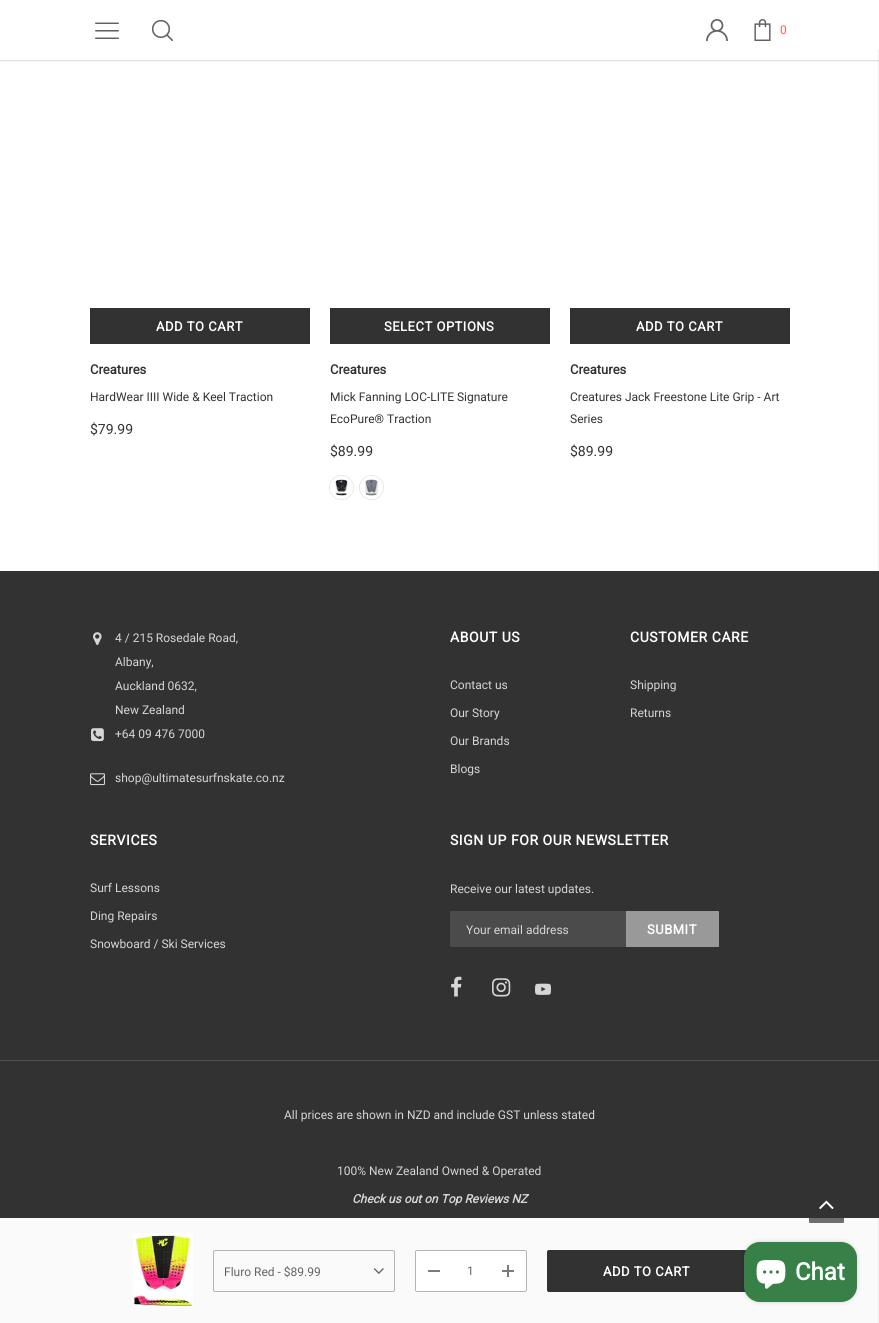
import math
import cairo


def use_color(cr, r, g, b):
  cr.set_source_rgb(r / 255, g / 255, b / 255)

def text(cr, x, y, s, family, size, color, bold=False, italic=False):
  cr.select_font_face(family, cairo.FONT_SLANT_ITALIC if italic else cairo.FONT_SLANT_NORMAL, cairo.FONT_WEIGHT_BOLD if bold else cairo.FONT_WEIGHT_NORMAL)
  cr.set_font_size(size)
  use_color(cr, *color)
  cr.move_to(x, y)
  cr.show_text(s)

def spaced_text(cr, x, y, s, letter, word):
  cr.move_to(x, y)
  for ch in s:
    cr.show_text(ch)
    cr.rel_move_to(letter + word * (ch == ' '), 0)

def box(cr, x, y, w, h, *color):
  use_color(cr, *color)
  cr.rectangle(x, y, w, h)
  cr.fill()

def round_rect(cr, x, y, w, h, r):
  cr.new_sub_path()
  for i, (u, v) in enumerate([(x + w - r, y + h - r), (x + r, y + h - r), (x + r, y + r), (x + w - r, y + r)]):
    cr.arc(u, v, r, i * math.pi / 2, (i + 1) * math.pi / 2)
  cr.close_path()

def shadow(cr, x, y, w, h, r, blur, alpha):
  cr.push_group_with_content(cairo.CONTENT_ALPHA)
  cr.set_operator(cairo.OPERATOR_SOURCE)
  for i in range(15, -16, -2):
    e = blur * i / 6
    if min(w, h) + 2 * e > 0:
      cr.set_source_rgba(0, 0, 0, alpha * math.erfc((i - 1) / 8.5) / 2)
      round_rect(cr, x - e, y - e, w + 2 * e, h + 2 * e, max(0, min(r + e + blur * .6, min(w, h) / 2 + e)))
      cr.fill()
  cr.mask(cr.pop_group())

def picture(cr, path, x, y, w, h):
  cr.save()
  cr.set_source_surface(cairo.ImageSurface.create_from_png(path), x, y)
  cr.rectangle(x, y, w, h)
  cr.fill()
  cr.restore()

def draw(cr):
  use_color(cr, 255, 255, 255)
  cr.paint()
  use_color(cr, 0, 0, 0)
  shadow(cr, 0, 1, 879, 60, 0, 1, 0.1)
  cr.rectangle(-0.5, -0.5, 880, 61)
  cr.set_source_rgba(0, 0, 0, 0.06)
  cr.set_line_width(1)
  cr.stroke()
  box(cr, 0, 0, 879, 60, 255, 255, 255)
  picture(cr, "img_01.png", 95, 22, 24, 17)
  picture(cr, "img_02.png", 152, 20, 21, 21)
  picture(cr, "img_03.png", 706, 19, 22, 22)
  picture(cr, "img_04.png", 754, 19, 17, 22)
  box(cr, 0, 1218, 879, 105, 250, 250, 250)
  box(cr, 0, 571, 879, 647, 50, 50, 50)
  box(cr, 0, 1060, 879, 1, 81, 81, 81)
  cr.rectangle(878.5, 49.5, 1, 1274)
  cr.set_source_rgba(0, 0, 0, 0.06)
  cr.stroke()
  box(cr, 90, 308, 220, 36, 50, 50, 50)
  box(cr, 330, 308, 220, 36, 50, 50, 50)
  cr.arc(341.5, 487.5, 12, 0, 2 * math.pi)
  use_color(cr, 230, 230, 230)
  cr.stroke()
  picture(cr, "img_05.png", 335, 479, 13, 17)
  cr.arc(341.5, 487.5, 10, 0, 2 * math.pi)
  use_color(cr, 255, 255, 255)
  cr.set_line_width(3)
  cr.stroke()
  cr.arc(371.5, 487.5, 12, 0, 2 * math.pi)
  use_color(cr, 230, 230, 230)
  cr.set_line_width(1)
  cr.stroke()
  picture(cr, "img_06.png", 365, 479, 13, 17)
  cr.arc(371.5, 487.5, 10, 0, 2 * math.pi)
  use_color(cr, 255, 255, 255)
  cr.set_line_width(3)
  cr.stroke()
  box(cr, 570, 308, 220, 36, 50, 50, 50)
  picture(cr, "img_07.png", 133, 1233, 60, 75)
  round_rect(cr, 213.5, 1250.5, 181, 41, 1.5)
  use_color(cr, 180, 180, 180)
  cr.set_line_width(1)
  cr.stroke()
  picture(cr, "img_08.png", 373, 1268, 11, 6)
  use_color(cr, 255, 255, 255)
  round_rect(cr, 415.5, 1250.5, 111, 41, 1.5)
  cr.fill_preserve()
  use_color(cr, 180, 180, 180)
  cr.stroke()
  box(cr, 428, 1270, 12, 2, 123, 123, 123)
  box(cr, 507, 1265, 2, 12, 123, 123, 123)
  box(cr, 502, 1270, 12, 2, 123, 123, 123)
  use_color(cr, 50, 50, 50)
  round_rect(cr, 547.5, 1250.5, 199, 41, 1.5)
  cr.fill_preserve()
  cr.stroke()
  picture(cr, "img_09.png", 93, 632, 9, 13)
  picture(cr, "img_10.png", 91, 728, 13, 14)
  picture(cr, "img_11.png", 90, 773, 15, 13)
  use_color(cr, 75, 75, 75)
  cr.new_path()
  cr.move_to(451, 911.5)
  cr.line_to(626.5, 911.5)
  cr.line_to(626.5, 946.5)
  cr.line_to(451, 946.5)
  cr.curve_to(450.5, 946.5, 450.5, 946.5, 450.5, 946)
  cr.line_to(450.5, 912)
  cr.curve_to(450.5, 911.5, 450.5, 911.5, 451, 911.5)
  cr.close_path()
  cr.fill_preserve()
  cr.stroke()
  use_color(cr, 153, 153, 153)
  cr.new_path()
  cr.move_to(626.5, 911.5)
  cr.line_to(718, 911.5)
  cr.curve_to(718.5, 911.5, 718.5, 911.5, 718.5, 912)
  cr.line_to(718.5, 946)
  cr.curve_to(718.5, 946.5, 718.5, 946.5, 718, 946.5)
  cr.line_to(626.5, 946.5)
  cr.close_path()
  cr.fill_preserve()
  cr.stroke()
  picture(cr, "img_12.png", 451, 976, 11, 21)
  picture(cr, "img_13.png", 492, 978, 19, 19)
  picture(cr, "img_14.png", 535, 983, 16, 12)
  cr.set_source_rgba(0.196, 0.196, 0.196, 0.7)
  round_rect(cr, 809, 1188, 35, 35, 1)
  cr.fill()
  picture(cr, "img_15.png", 819, 1200, 15, 9)
  use_color(cr, 0, 0, 0)
  shadow(cr, 744, 1242, 113, 60, 16, 2.5, 0.15)
  use_color(cr, 55, 128, 71)
  round_rect(cr, 744, 1242, 113, 60, 16)
  cr.fill()
  picture(cr, "img_16.png", 756, 1260, 30, 29)
  text(cr, 780, 34, "0", "Roboto", 12, (239, 100, 84))
  cr.select_font_face("Roboto", cairo.FONT_SLANT_NORMAL, cairo.FONT_WEIGHT_BOLD)
  cr.set_font_size(13)
  use_color(cr, 255, 255, 255)
  spaced_text(cr, 156, 331, "ADD TO CART", 0.5, 0)
  text(cr, 90, 374, "Creatures", "Roboto", 13, (50, 50, 50), bold=True)
  text(cr, 90, 401, "HardWear IIII Wide & Keel Traction", "Roboto", 12, (50, 50, 50))
  text(cr, 90, 434, "$79.99", "Roboto", 14, (50, 50, 50))
  cr.select_font_face("Roboto", cairo.FONT_SLANT_NORMAL, cairo.FONT_WEIGHT_BOLD)
  cr.set_font_size(13)
  use_color(cr, 255, 255, 255)
  spaced_text(cr, 384, 331, "SELECT OPTIONS", 0.5, 0)
  text(cr, 330, 374, "Creatures", "Roboto", 13, (50, 50, 50), bold=True)
  text(cr, 330, 401, "Mick Fanning LOC-LITE Signature", "Roboto", 12, (50, 50, 50))
  text(cr, 330, 423, "EcoPure® Traction", "Roboto", 12, (50, 50, 50))
  text(cr, 330, 456, "$89.99", "Roboto", 14, (50, 50, 50))
  cr.select_font_face("Roboto", cairo.FONT_SLANT_NORMAL, cairo.FONT_WEIGHT_BOLD)
  cr.set_font_size(13)
  use_color(cr, 255, 255, 255)
  spaced_text(cr, 636, 331, "ADD TO CART", 0.5, 0)
  text(cr, 570, 374, "Creatures", "Roboto", 13, (50, 50, 50), bold=True)
  text(cr, 570, 401, "Creatures Jack Freestone Lite Grip - Art", "Roboto", 12, (50, 50, 50))
  text(cr, 570, 423, "Series", "Roboto", 12, (50, 50, 50))
  text(cr, 570, 456, "$89.99", "Roboto", 14, (50, 50, 50))
  text(cr, 224, 1276, "Fluro Red - $89.99", "Roboto", 12, (100, 100, 100))
  text(cr, 467, 1275, "1", "Roboto", 12, (100, 100, 100))
  cr.select_font_face("Roboto", cairo.FONT_SLANT_NORMAL, cairo.FONT_WEIGHT_BOLD)
  cr.set_font_size(13)
  use_color(cr, 255, 255, 255)
  spaced_text(cr, 603, 1276, "ADD TO CART", 0.5, 0)
  text(cr, 115, 642, "4 / 215 Rosedale Road,", "Roboto", 12, (214, 214, 214))
  text(cr, 115, 666, "Albany,", "Roboto", 12, (214, 214, 214))
  text(cr, 115, 690, "Auckland 0632,", "Roboto", 12, (214, 214, 214))
  text(cr, 115, 714, "New Zealand", "Roboto", 12, (214, 214, 214))
  text(cr, 115, 738, "+64 09 476 7000", "Roboto", 12, (214, 214, 214))
  text(cr, 115, 782, "shop@ultimatesurfnskate.co.nz", "Roboto", 12, (214, 214, 214))
  cr.select_font_face("Roboto", cairo.FONT_SLANT_NORMAL, cairo.FONT_WEIGHT_BOLD)
  cr.set_font_size(14)
  use_color(cr, 255, 255, 255)
  spaced_text(cr, 450, 642, "ABOUT US", 0.55, 0)
  text(cr, 450, 689, "Contact us", "Roboto", 12, (214, 214, 214))
  text(cr, 450, 717, "Our Story", "Roboto", 12, (214, 214, 214))
  text(cr, 450, 745, "Our Brands", "Roboto", 12, (214, 214, 214))
  text(cr, 450, 773, "Blogs", "Roboto", 12, (214, 214, 214))
  cr.select_font_face("Roboto", cairo.FONT_SLANT_NORMAL, cairo.FONT_WEIGHT_BOLD)
  cr.set_font_size(14)
  use_color(cr, 255, 255, 255)
  spaced_text(cr, 630, 642, "CUSTOMER CARE", 0.55, 0)
  text(cr, 630, 689, "Shipping", "Roboto", 12, (214, 214, 214))
  text(cr, 630, 717, "Returns", "Roboto", 12, (214, 214, 214))
  cr.select_font_face("Roboto", cairo.FONT_SLANT_NORMAL, cairo.FONT_WEIGHT_BOLD)
  cr.set_font_size(14)
  use_color(cr, 255, 255, 255)
  spaced_text(cr, 90, 845, "SERVICES", 0.55, 0)
  text(cr, 90, 892, "Surf Lessons", "Roboto", 12, (214, 214, 214))
  text(cr, 90, 920, "Ding Repairs", "Roboto", 12, (214, 214, 214))
  text(cr, 90, 948, "Snowboard / Ski Services", "Roboto", 12, (214, 214, 214))
  cr.select_font_face("Roboto", cairo.FONT_SLANT_NORMAL, cairo.FONT_WEIGHT_BOLD)
  cr.set_font_size(14)
  use_color(cr, 255, 255, 255)
  spaced_text(cr, 450, 845, "SIGN UP FOR OUR NEWSLETTER", 0.55, 0)
  text(cr, 450, 893, "Receive our latest updates.", "Roboto", 12, (214, 214, 214))
  text(cr, 466, 934, "Your email address", "Roboto", 12, (214, 214, 214))
  cr.select_font_face("Roboto", cairo.FONT_SLANT_NORMAL, cairo.FONT_WEIGHT_BOLD)
  cr.set_font_size(13)
  use_color(cr, 255, 255, 255)
  spaced_text(cr, 647, 934, "SUBMIT", 0.5, 0)
  text(cr, 284, 1119, "All prices are shown in NZD and include GST unless stated", "Roboto", 12, (214, 214, 214))
  text(cr, 337, 1175, "100% New Zealand Owned & Operated", "Roboto", 12, (214, 214, 214))
  text(cr, 352, 1203, "Check us out on Top Reviews NZ", "Roboto", 12, (214, 214, 214), bold=True, italic=True)
  text(cr, 795, 1280, "Chat", "Roboto", 24, (255, 255, 255), bold=True)


surface = cairo.ImageSurface(cairo.FORMAT_RGB24, 879, 1323)
cr = cairo.Context(surface)
options = cairo.FontOptions()
options.set_hint_metrics(cairo.HINT_METRICS_OFF)
options.set_hint_style(cairo.HINT_STYLE_NONE)
cr.set_font_options(options)
cr.set_miter_limit(4)
draw(cr)
surface.write_to_png("out.png")
